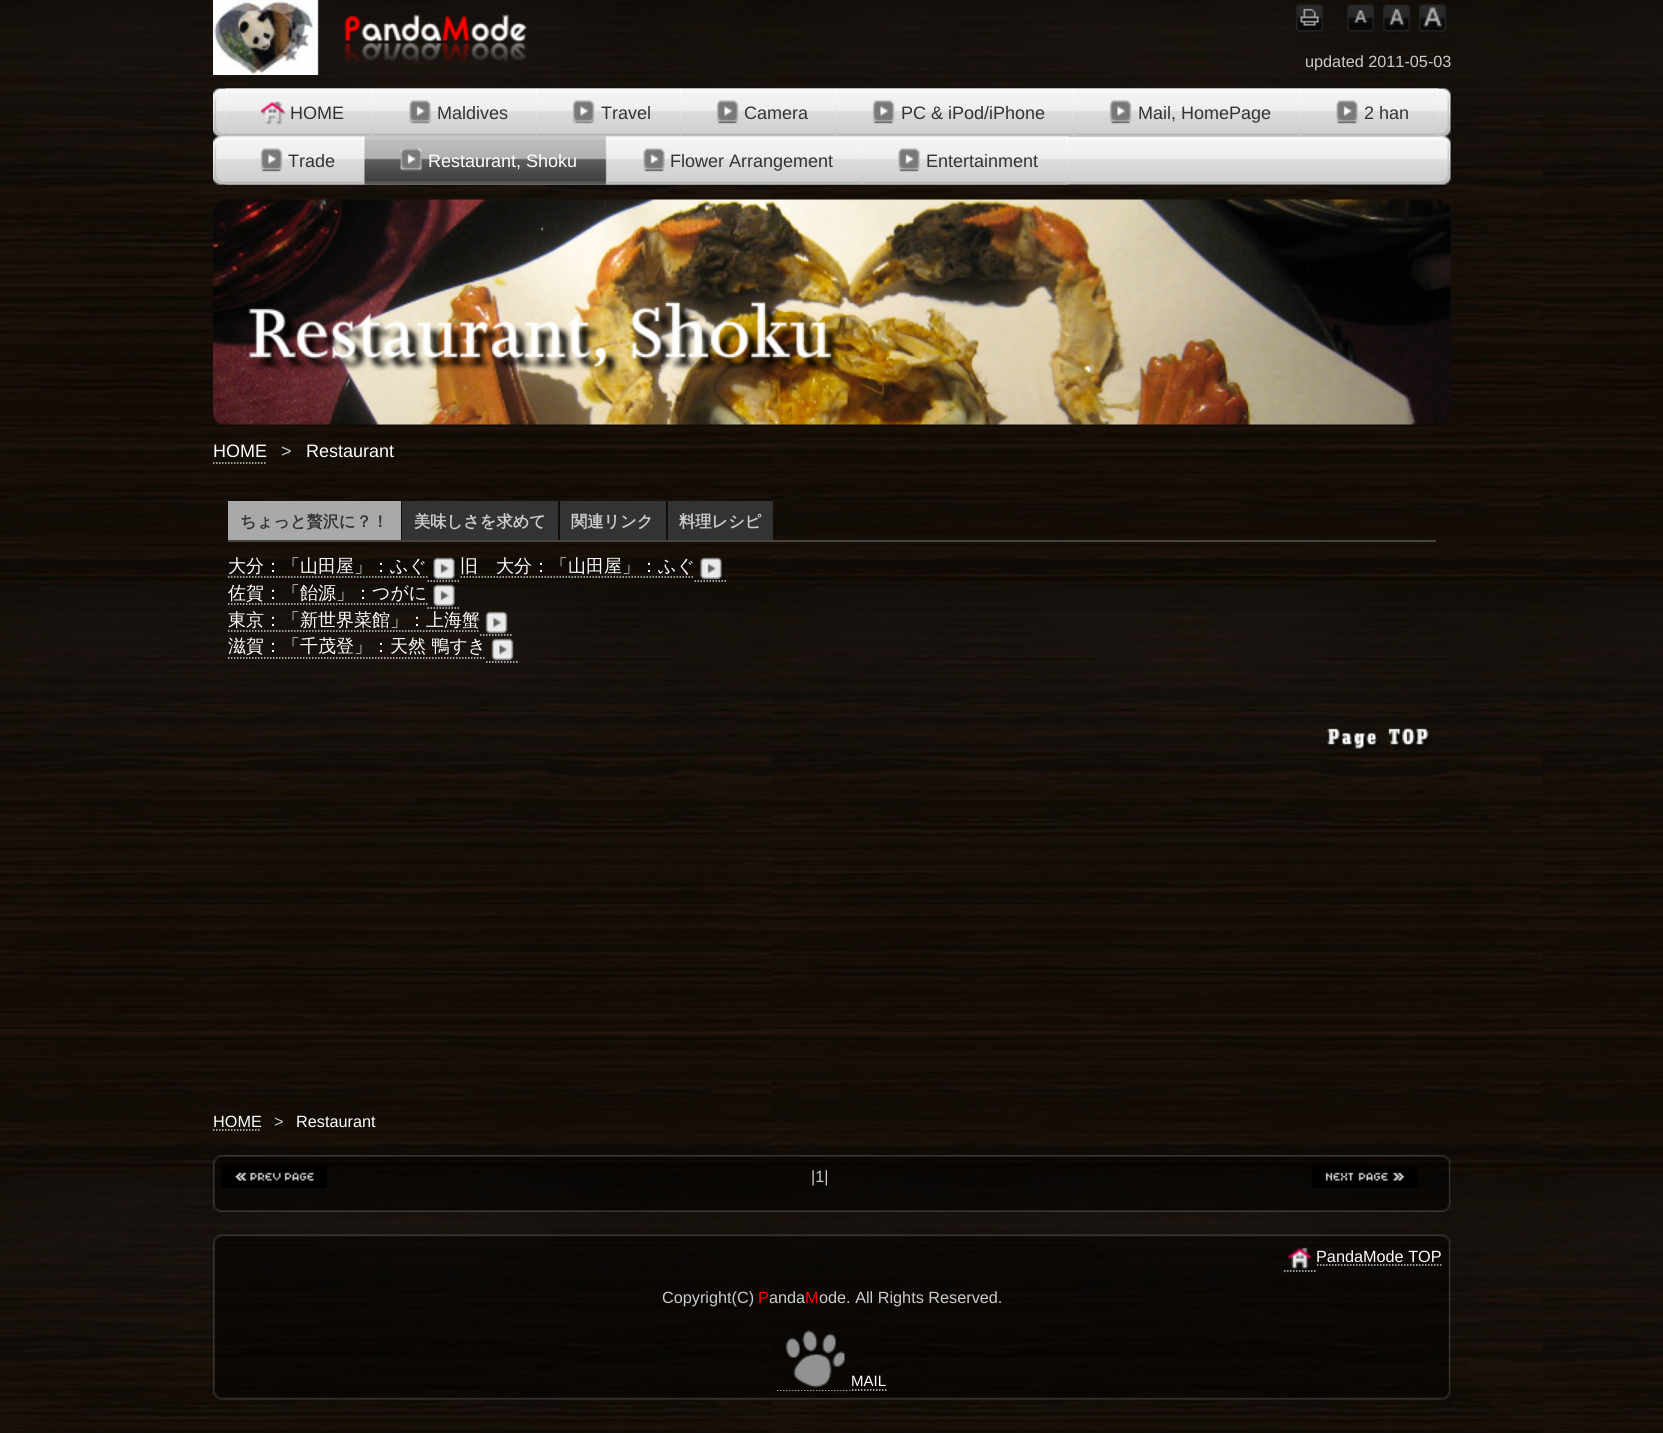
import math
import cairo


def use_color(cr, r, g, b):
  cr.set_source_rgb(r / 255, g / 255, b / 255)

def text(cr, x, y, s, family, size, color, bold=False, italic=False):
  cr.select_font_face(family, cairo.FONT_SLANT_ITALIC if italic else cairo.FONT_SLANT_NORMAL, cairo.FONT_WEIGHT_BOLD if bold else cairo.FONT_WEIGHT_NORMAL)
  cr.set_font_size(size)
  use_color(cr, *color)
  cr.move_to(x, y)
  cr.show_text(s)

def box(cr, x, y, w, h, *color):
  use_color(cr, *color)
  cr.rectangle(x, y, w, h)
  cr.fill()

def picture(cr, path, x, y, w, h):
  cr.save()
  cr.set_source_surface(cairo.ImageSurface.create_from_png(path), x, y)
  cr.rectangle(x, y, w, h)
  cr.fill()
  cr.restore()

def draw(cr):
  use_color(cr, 255, 255, 255)
  cr.paint()
  picture(cr, "img_01.png", 0, 0, 1663, 1433)
  picture(cr, "img_02.png", 213, 0, 314, 75)
  picture(cr, "img_03.png", 1296, 4, 27, 28)
  picture(cr, "img_04.png", 1347, 4, 28, 28)
  picture(cr, "img_05.png", 1383, 4, 28, 28)
  picture(cr, "img_06.png", 1419, 4, 28, 28)
  picture(cr, "img_07.png", 213, 88, 12, 97)
  picture(cr, "img_08.png", 225, 88, 1226, 97)
  picture(cr, "img_09.png", 225, 88, 2, 49)
  picture(cr, "img_10.png", 226, 88, 148, 49)
  picture(cr, "img_11.png", 261, 101, 24, 24)
  picture(cr, "img_12.png", 373, 88, 164, 49)
  picture(cr, "img_13.png", 409, 100, 22, 24)
  picture(cr, "img_14.png", 537, 88, 144, 49)
  picture(cr, "img_15.png", 572, 100, 23, 24)
  picture(cr, "img_16.png", 681, 88, 156, 49)
  picture(cr, "img_17.png", 716, 100, 23, 24)
  picture(cr, "img_18.png", 837, 88, 237, 49)
  picture(cr, "img_19.png", 872, 100, 23, 24)
  picture(cr, "img_20.png", 1074, 88, 227, 49)
  picture(cr, "img_19.png", 1109, 100, 23, 24)
  picture(cr, "img_21.png", 1300, 88, 139, 49)
  picture(cr, "img_22.png", 1336, 100, 22, 24)
  picture(cr, "img_23.png", 225, 136, 140, 49)
  picture(cr, "img_19.png", 260, 148, 23, 24)
  picture(cr, "img_24.png", 364, 136, 244, 49)
  picture(cr, "img_25.png", 400, 148, 22, 24)
  picture(cr, "img_26.png", 607, 136, 256, 49)
  picture(cr, "img_27.png", 643, 148, 22, 24)
  picture(cr, "img_28.png", 862, 136, 206, 49)
  picture(cr, "img_27.png", 898, 148, 22, 24)
  picture(cr, "img_29.png", 213, 199, 1238, 226)
  cr.new_path()
  cr.move_to(213, 463)
  cr.line_to(267, 463)
  use_color(cr, 204, 204, 204)
  cr.set_line_width(1.5)
  cr.set_dash([1.5, 1.5])
  cr.stroke()
  box(cr, 228, 501, 173, 39, 169, 169, 169)
  box(cr, 402, 501, 156, 39, 51, 51, 51)
  box(cr, 560, 501, 106, 39, 51, 51, 51)
  box(cr, 668, 501, 105, 39, 51, 51, 51)
  box(cr, 228, 540, 1208, 2, 68, 68, 68)
  cr.new_path()
  cr.move_to(228, 577)
  cr.line_to(427.5, 577)
  use_color(cr, 204, 204, 204)
  cr.stroke()
  cr.new_path()
  cr.move_to(427.5, 581)
  cr.line_to(460.5, 581)
  cr.stroke()
  picture(cr, "img_30.png", 433, 557, 22, 23)
  cr.new_path()
  cr.move_to(460.5, 577)
  cr.line_to(694.5, 577)
  cr.stroke()
  cr.new_path()
  cr.move_to(694.5, 581)
  cr.line_to(727.5, 581)
  cr.stroke()
  picture(cr, "img_31.png", 700, 557, 22, 23)
  cr.new_path()
  cr.move_to(228, 604)
  cr.line_to(427.5, 604)
  cr.stroke()
  cr.new_path()
  cr.move_to(427.5, 608)
  cr.line_to(460.5, 608)
  cr.stroke()
  picture(cr, "img_32.png", 433, 584, 22, 23)
  cr.new_path()
  cr.move_to(228, 631)
  cr.line_to(480, 631)
  cr.stroke()
  cr.new_path()
  cr.move_to(480, 635)
  cr.line_to(513, 635)
  cr.stroke()
  picture(cr, "img_33.png", 485, 611, 23, 23)
  cr.new_path()
  cr.move_to(228, 658)
  cr.line_to(486, 658)
  cr.stroke()
  cr.new_path()
  cr.move_to(486, 662)
  cr.line_to(519, 662)
  cr.stroke()
  picture(cr, "img_34.png", 491, 638, 23, 23)
  picture(cr, "img_35.png", 1327, 727, 105, 24)
  cr.new_path()
  cr.move_to(213, 1130)
  cr.line_to(261, 1130)
  cr.stroke()
  picture(cr, "img_36.png", 213, 1155, 9, 9)
  picture(cr, "img_37.png", 222, 1155, 1220, 9)
  picture(cr, "img_38.png", 1441, 1155, 10, 9)
  picture(cr, "img_39.png", 213, 1164, 9, 39)
  cr.set_source_rgba(0, 0, 0, 0.5)
  cr.rectangle(222, 1164, 1220, 39)
  cr.fill()
  picture(cr, "img_40.png", 222, 1165, 105, 23)
  picture(cr, "img_41.png", 1312, 1166, 106, 22)
  picture(cr, "img_42.png", 1442, 1164, 9, 39)
  picture(cr, "img_43.png", 213, 1203, 9, 9)
  picture(cr, "img_44.png", 222, 1203, 1220, 9)
  picture(cr, "img_45.png", 1441, 1203, 10, 9)
  picture(cr, "img_46.png", 213, 1234, 9, 10)
  picture(cr, "img_47.png", 222, 1234, 1220, 10)
  picture(cr, "img_48.png", 1441, 1234, 10, 10)
  picture(cr, "img_53.png", 213, 1390, 9, 10)
  picture(cr, "img_49.png", 213, 1243, 9, 148)
  cr.rectangle(222, 1244, 1220, 146)
  cr.fill()
  cr.new_path()
  cr.move_to(1284, 1271)
  cr.line_to(1317, 1271)
  use_color(cr, 204, 204, 204)
  cr.stroke()
  picture(cr, "img_50.png", 1288, 1247, 24, 24)
  cr.new_path()
  cr.move_to(1317, 1265)
  cr.line_to(1441.5, 1265)
  cr.stroke()
  picture(cr, "img_51.png", 785, 1330, 60, 58)
  picture(cr, "img_54.png", 222, 1390, 1220, 10)
  cr.save()
  cr.rectangle(213, 1244, 1238, 147)
  cr.clip()
  cr.new_path()
  cr.move_to(777, 1391)
  cr.line_to(852, 1391)
  cr.stroke()
  cr.restore()
  cr.new_path()
  cr.move_to(852, 1390)
  cr.line_to(886.5, 1390)
  cr.stroke()
  picture(cr, "img_55.png", 1441, 1390, 10, 10)
  picture(cr, "img_52.png", 1441, 1243, 10, 148)
  text(cr, 1305, 67, "updated 2011-05-03", "Liberation Sans", 16.25, (204, 204, 204))
  text(cr, 290, 119, "HOME", "Liberation Sans", 18, (51, 51, 51))
  text(cr, 437, 119, "Maldives", "Liberation Sans", 18, (51, 51, 51))
  text(cr, 601, 119, "Travel", "Liberation Sans", 18, (51, 51, 51))
  text(cr, 744, 119, "Camera", "Liberation Sans", 18, (51, 51, 51))
  text(cr, 901, 119, "PC & iPod/iPhone", "Liberation Sans", 18, (51, 51, 51))
  text(cr, 1138, 119, "Mail, HomePage", "Liberation Sans", 18, (51, 51, 51))
  text(cr, 1364, 119, "2 han", "Liberation Sans", 18, (51, 51, 51))
  text(cr, 288, 167, "Trade", "Liberation Sans", 18, (51, 51, 51))
  text(cr, 428, 167, "Restaurant, Shoku", "Liberation Sans", 18, (255, 255, 255))
  text(cr, 670, 167, "Flower Arrangement", "Liberation Sans", 18, (51, 51, 51))
  text(cr, 926, 167, "Entertainment", "Liberation Sans", 18, (51, 51, 51))
  text(cr, 213, 457, "HOME", "Liberation Sans", 18, (255, 255, 255))
  text(cr, 281, 457, ">", "Liberation Sans", 18, (204, 204, 204))
  text(cr, 306, 457, "Restaurant", "Liberation Sans", 18, (255, 255, 255))
  text(cr, 240, 527, "ちょっと贅沢に？！", "WenQuanYi Zen Hei", 16.25, (51, 51, 51), bold=True)
  text(cr, 414, 527, "美味しさを求めて", "WenQuanYi Zen Hei", 16.25, (204, 204, 204), bold=True)
  text(cr, 571, 527, "関連リンク", "WenQuanYi Zen Hei", 16.25, (204, 204, 204), bold=True)
  text(cr, 679, 527, "料理レシピ", "WenQuanYi Zen Hei", 16.25, (204, 204, 204), bold=True)
  text(cr, 228, 572, "大分：「山田屋」：ふぐ", "WenQuanYi Zen Hei Medium", 18, (255, 255, 255))
  text(cr, 460, 572, "旧　大分：「山田屋」：ふぐ", "WenQuanYi Zen Hei Medium", 18, (255, 255, 255))
  text(cr, 228, 599, "佐賀：「飴源」：つがに", "WenQuanYi Zen Hei Medium", 18, (255, 255, 255))
  text(cr, 228, 626, "東京：「新世界菜館」：上海蟹", "WenQuanYi Zen Hei Medium", 18, (255, 255, 255))
  text(cr, 228, 652, "滋賀：「千茂登」：天然 鴨すき", "WenQuanYi Zen Hei Medium", 18, (255, 255, 255))
  text(cr, 213, 1127, "HOME", "Liberation Sans", 16.25, (255, 255, 255))
  text(cr, 274, 1127, ">", "Liberation Sans", 16.25, (204, 204, 204))
  text(cr, 296, 1127, "Restaurant", "Liberation Sans", 16.25, (255, 255, 255))
  text(cr, 811, 1182, "|1|", "Liberation Sans", 16.25, (204, 204, 204))
  text(cr, 1316, 1262, "PandaMode TOP", "Liberation Sans", 16.25, (255, 255, 255))
  text(cr, 662, 1303, "Copyright(C)", "Liberation Sans", 16.25, (204, 204, 204))
  text(cr, 758, 1303, "P", "Liberation Sans", 16.25, (255, 0, 0))
  text(cr, 769, 1303, "anda", "Liberation Sans", 16.25, (204, 204, 204))
  text(cr, 805, 1303, "M", "Liberation Sans", 16.25, (255, 0, 0))
  text(cr, 819, 1303, "ode. All Rights Reserved.", "Liberation Sans", 16.25, (204, 204, 204))
  text(cr, 851, 1386, "MAIL", "Liberation Sans", 15, (255, 255, 255))


surface = cairo.ImageSurface(cairo.FORMAT_RGB24, 1663, 1433)
cr = cairo.Context(surface)
options = cairo.FontOptions()
options.set_hint_metrics(cairo.HINT_METRICS_OFF)
options.set_hint_style(cairo.HINT_STYLE_NONE)
cr.set_font_options(options)
cr.set_miter_limit(4)
draw(cr)
surface.write_to_png("out.png")
